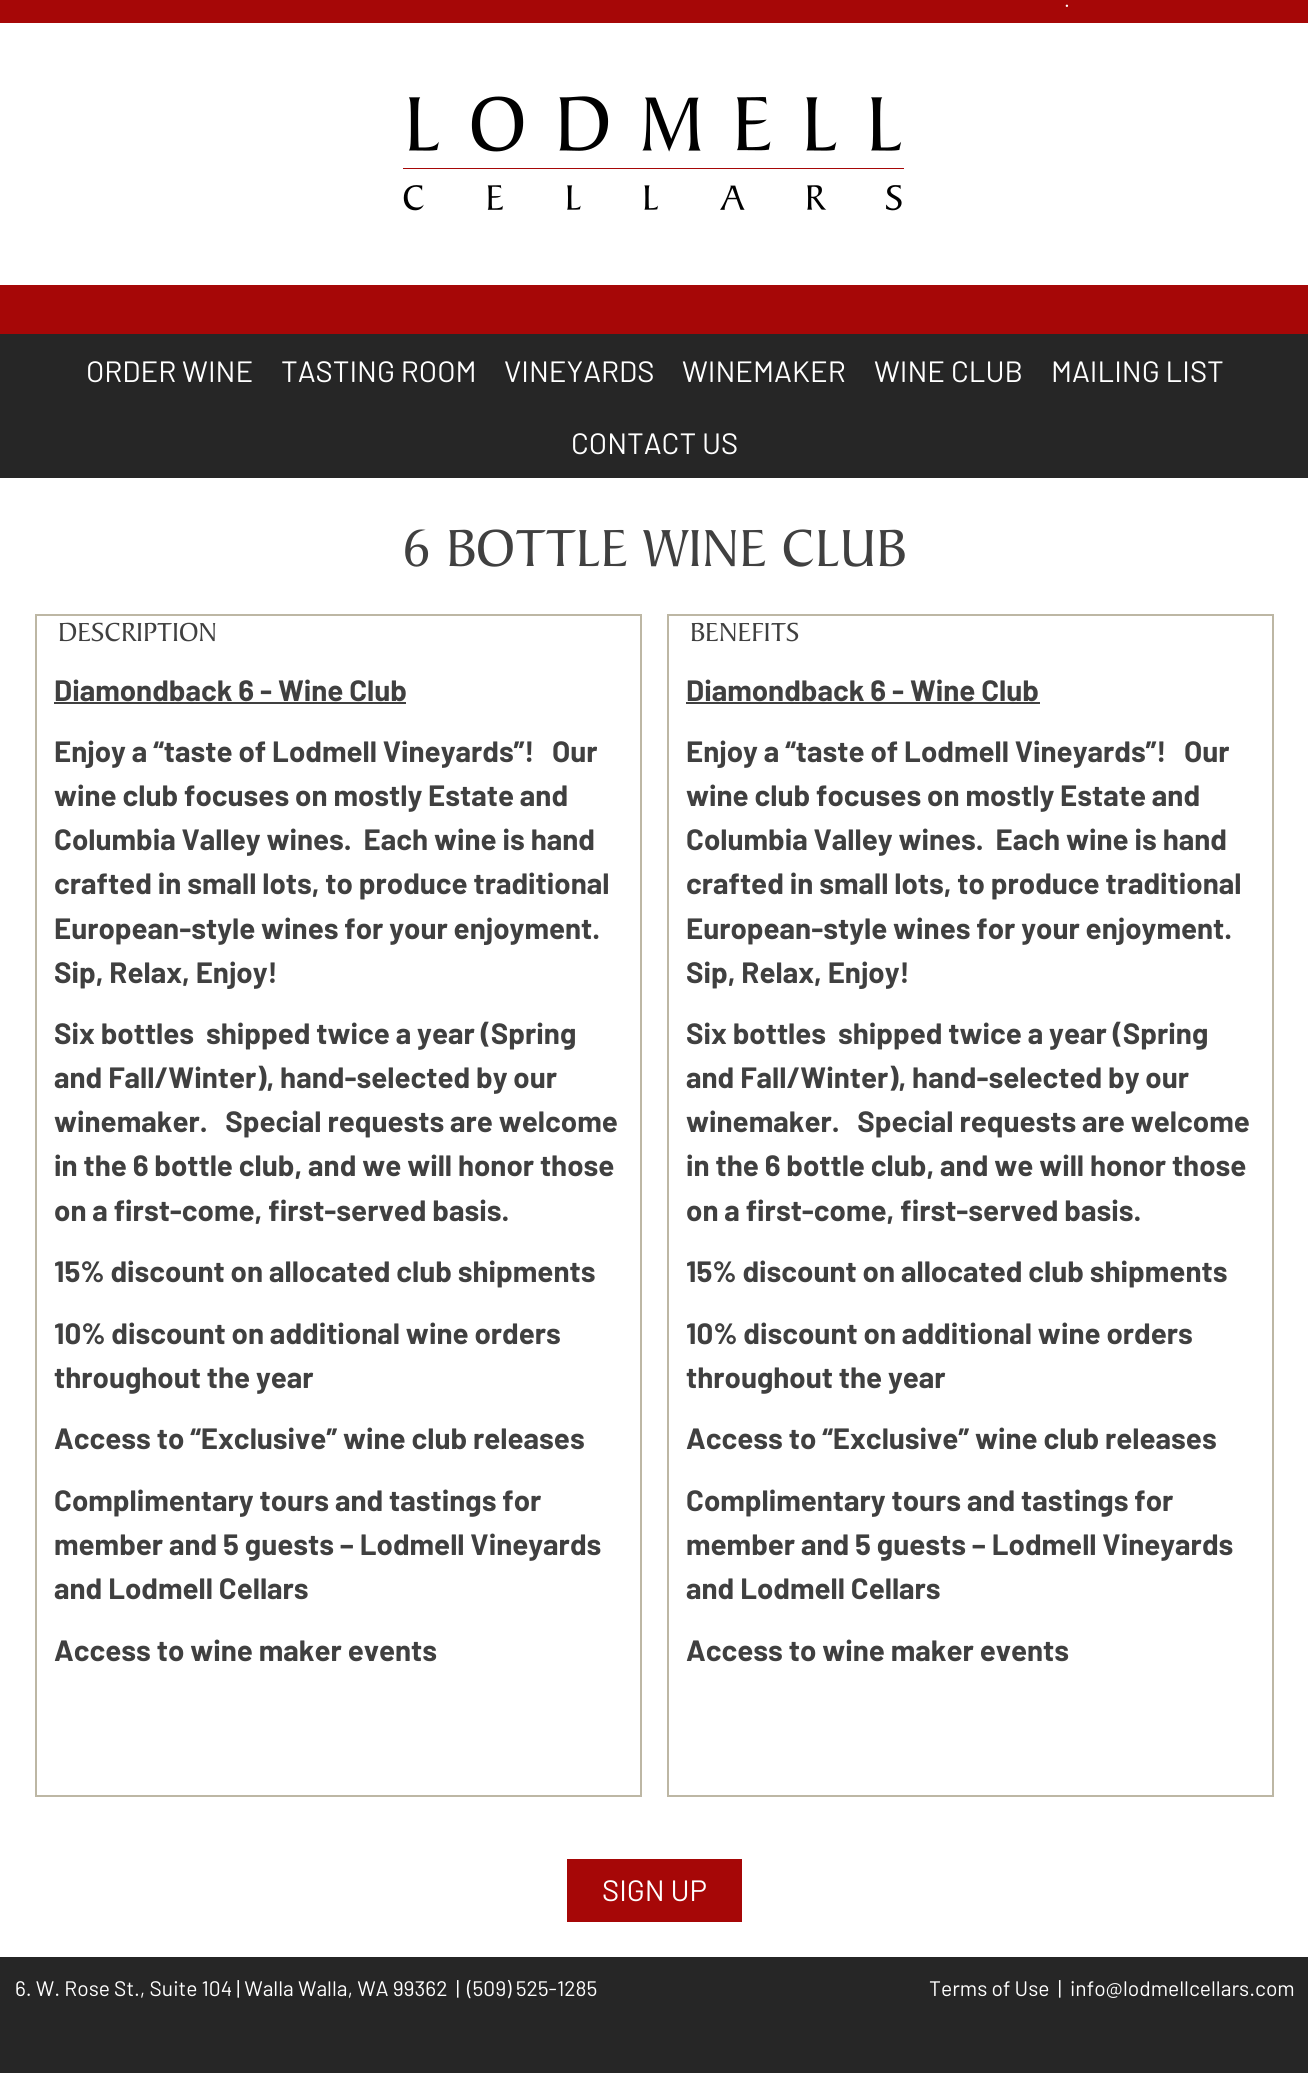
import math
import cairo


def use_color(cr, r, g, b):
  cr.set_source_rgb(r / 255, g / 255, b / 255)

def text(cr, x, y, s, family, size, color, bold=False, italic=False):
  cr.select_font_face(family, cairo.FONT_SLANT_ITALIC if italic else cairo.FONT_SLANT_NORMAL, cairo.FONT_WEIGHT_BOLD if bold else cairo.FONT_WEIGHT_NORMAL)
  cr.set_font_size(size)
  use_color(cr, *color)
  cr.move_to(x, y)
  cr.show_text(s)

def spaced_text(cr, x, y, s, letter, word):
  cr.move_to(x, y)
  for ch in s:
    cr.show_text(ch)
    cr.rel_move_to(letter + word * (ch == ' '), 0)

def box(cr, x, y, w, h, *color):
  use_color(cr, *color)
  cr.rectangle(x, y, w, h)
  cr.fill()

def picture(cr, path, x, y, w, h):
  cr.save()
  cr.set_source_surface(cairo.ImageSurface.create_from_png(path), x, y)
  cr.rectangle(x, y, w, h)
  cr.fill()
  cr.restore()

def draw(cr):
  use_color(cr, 255, 255, 255)
  cr.paint()
  box(cr, 0, 0, 1308, 23, 166, 7, 7)
  box(cr, 0, 285, 1308, 49, 166, 7, 7)
  picture(cr, "img_01.png", 403, 96, 501, 115)
  box(cr, 0, 334, 1308, 144, 38, 38, 38)
  cr.rectangle(36, 615, 605, 1181)
  use_color(cr, 189, 183, 164)
  cr.stroke()
  box(cr, 54, 702, 352, 2, 64, 64, 64)
  cr.rectangle(668, 615, 605, 1181)
  use_color(cr, 189, 183, 164)
  cr.stroke()
  box(cr, 686, 702, 354, 2, 64, 64, 64)
  box(cr, 567, 1859, 175, 63, 166, 7, 7)
  box(cr, 0, 1957, 1308, 116, 38, 38, 38)
  cr.select_font_face("Barlow")
  cr.set_font_size(21)
  use_color(cr, 255, 255, 255)
  spaced_text(cr, 1064, 7, ".", 0, 2)
  text(cr, 86, 382, "ORDER WINE", "Barlow", 29.4, (255, 255, 255))
  text(cr, 281, 382, "TASTING ROOM", "Barlow", 29.4, (255, 255, 255))
  text(cr, 504, 382, "VINEYARDS", "Barlow", 29.4, (255, 255, 255))
  text(cr, 682, 382, "WINEMAKER", "Barlow", 29.4, (255, 255, 255))
  text(cr, 874, 382, "WINE CLUB", "Barlow", 29.4, (255, 255, 255))
  text(cr, 1051, 382, "MAILING LIST", "Barlow", 29.4, (255, 255, 255))
  text(cr, 571, 454, "CONTACT US", "Barlow", 29.4, (255, 255, 255))
  text(cr, 402, 566, "6 BOTTLE WINE CLUB", "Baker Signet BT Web", 56, (64, 64, 64))
  text(cr, 58, 641, "DESCRIPTION", "Baker Signet BT Web", 28, (64, 64, 64))
  text(cr, 54, 701, "Diamondback 6 - Wine Club", "Barlow", 29.4, (64, 64, 64), bold=True)
  text(cr, 54, 762, "Enjoy a “taste of Lodmell Vineyards”!   Our", "Barlow", 29.4, (64, 64, 64), bold=True)
  text(cr, 54, 806, "wine club focuses on mostly Estate and", "Barlow", 29.4, (64, 64, 64), bold=True)
  text(cr, 54, 850, "Columbia Valley wines.  Each wine is hand", "Barlow", 29.4, (64, 64, 64), bold=True)
  text(cr, 54, 894, "crafted in small lots, to produce traditional", "Barlow", 29.4, (64, 64, 64), bold=True)
  text(cr, 54, 939, "European-style wines for your enjoyment.", "Barlow", 29.4, (64, 64, 64), bold=True)
  text(cr, 54, 983, "Sip, Relax, Enjoy!", "Barlow", 29.4, (64, 64, 64), bold=True)
  text(cr, 54, 1044, "Six bottles", "Barlow", 29.4, (64, 64, 64), bold=True)
  text(cr, 206, 1044, "shipped twice a year (Spring", "Barlow", 29.4, (64, 64, 64), bold=True)
  text(cr, 54, 1088, "and Fall/Winter), hand-selected by our", "Barlow", 29.4, (64, 64, 64), bold=True)
  text(cr, 54, 1132, "winemaker.   Special requests are welcome", "Barlow", 29.4, (64, 64, 64), bold=True)
  text(cr, 54, 1176, "in the 6 bottle club, and we will honor those", "Barlow", 29.4, (64, 64, 64), bold=True)
  text(cr, 54, 1221, "on a first-come, first-served basis.", "Barlow", 29.4, (64, 64, 64), bold=True)
  text(cr, 54, 1282, "15% discount on allocated club shipments", "Barlow", 29.4, (64, 64, 64), bold=True)
  text(cr, 54, 1344, "10% discount on additional wine orders", "Barlow", 29.4, (64, 64, 64), bold=True)
  text(cr, 54, 1388, "throughout the year", "Barlow", 29.4, (64, 64, 64), bold=True)
  text(cr, 54, 1449, "Access to “Exclusive” wine club releases", "Barlow", 29.4, (64, 64, 64), bold=True)
  text(cr, 54, 1511, "Complimentary tours and tastings for", "Barlow", 29.4, (64, 64, 64), bold=True)
  text(cr, 54, 1555, "member and 5 guests – Lodmell Vineyards", "Barlow", 29.4, (64, 64, 64), bold=True)
  text(cr, 54, 1599, "and Lodmell Cellars", "Barlow", 29.4, (64, 64, 64), bold=True)
  text(cr, 54, 1661, "Access to wine maker events", "Barlow", 29.4, (64, 64, 64), bold=True)
  text(cr, 690, 641, "BENEFITS", "Baker Signet BT Web", 28, (64, 64, 64))
  text(cr, 686, 701, "Diamondback 6 - Wine Club", "Barlow", 29.4, (64, 64, 64), bold=True)
  text(cr, 686, 762, "Enjoy a “taste of Lodmell Vineyards”!   Our", "Barlow", 29.4, (64, 64, 64), bold=True)
  text(cr, 686, 806, "wine club focuses on mostly Estate and", "Barlow", 29.4, (64, 64, 64), bold=True)
  text(cr, 686, 850, "Columbia Valley wines.  Each wine is hand", "Barlow", 29.4, (64, 64, 64), bold=True)
  text(cr, 686, 894, "crafted in small lots, to produce traditional", "Barlow", 29.4, (64, 64, 64), bold=True)
  text(cr, 686, 939, "European-style wines for your enjoyment.", "Barlow", 29.4, (64, 64, 64), bold=True)
  text(cr, 686, 983, "Sip, Relax, Enjoy!", "Barlow", 29.4, (64, 64, 64), bold=True)
  text(cr, 686, 1044, "Six bottles", "Barlow", 29.4, (64, 64, 64), bold=True)
  text(cr, 838, 1044, "shipped twice a year (Spring", "Barlow", 29.4, (64, 64, 64), bold=True)
  text(cr, 686, 1088, "and Fall/Winter), hand-selected by our", "Barlow", 29.4, (64, 64, 64), bold=True)
  text(cr, 686, 1132, "winemaker.   Special requests are welcome", "Barlow", 29.4, (64, 64, 64), bold=True)
  text(cr, 686, 1176, "in the 6 bottle club, and we will honor those", "Barlow", 29.4, (64, 64, 64), bold=True)
  text(cr, 686, 1221, "on a first-come, first-served basis.", "Barlow", 29.4, (64, 64, 64), bold=True)
  text(cr, 686, 1282, "15% discount on allocated club shipments", "Barlow", 29.4, (64, 64, 64), bold=True)
  text(cr, 686, 1344, "10% discount on additional wine orders", "Barlow", 29.4, (64, 64, 64), bold=True)
  text(cr, 686, 1388, "throughout the year", "Barlow", 29.4, (64, 64, 64), bold=True)
  text(cr, 686, 1449, "Access to “Exclusive” wine club releases", "Barlow", 29.4, (64, 64, 64), bold=True)
  text(cr, 686, 1511, "Complimentary tours and tastings for", "Barlow", 29.4, (64, 64, 64), bold=True)
  text(cr, 686, 1555, "member and 5 guests – Lodmell Vineyards", "Barlow", 29.4, (64, 64, 64), bold=True)
  text(cr, 686, 1599, "and Lodmell Cellars", "Barlow", 29.4, (64, 64, 64), bold=True)
  text(cr, 686, 1661, "Access to wine maker events", "Barlow", 29.4, (64, 64, 64), bold=True)
  text(cr, 602, 1901, "SIGN UP", "Barlow", 29.4, (255, 255, 255))
  text(cr, 15, 1996, "6. W. Rose St., Suite 104 | Walla Walla, WA 99362", "Barlow", 21, (255, 255, 255))
  text(cr, 456, 1996, "|", "Barlow", 21, (255, 255, 255))
  text(cr, 467, 1996, "(509) 525-1285", "Barlow", 21, (255, 255, 255))
  text(cr, 929, 1996, "Terms of Use", "Barlow", 21, (255, 255, 255))
  text(cr, 1058, 1996, "|", "Barlow", 21, (255, 255, 255))
  text(cr, 1070, 1996, "info@lodmellcellars.com", "Barlow", 21, (255, 255, 255))


surface = cairo.ImageSurface(cairo.FORMAT_RGB24, 1308, 2073)
cr = cairo.Context(surface)
options = cairo.FontOptions()
options.set_hint_metrics(cairo.HINT_METRICS_OFF)
options.set_hint_style(cairo.HINT_STYLE_NONE)
cr.set_font_options(options)
cr.set_miter_limit(4)
draw(cr)
surface.write_to_png("out.png")
